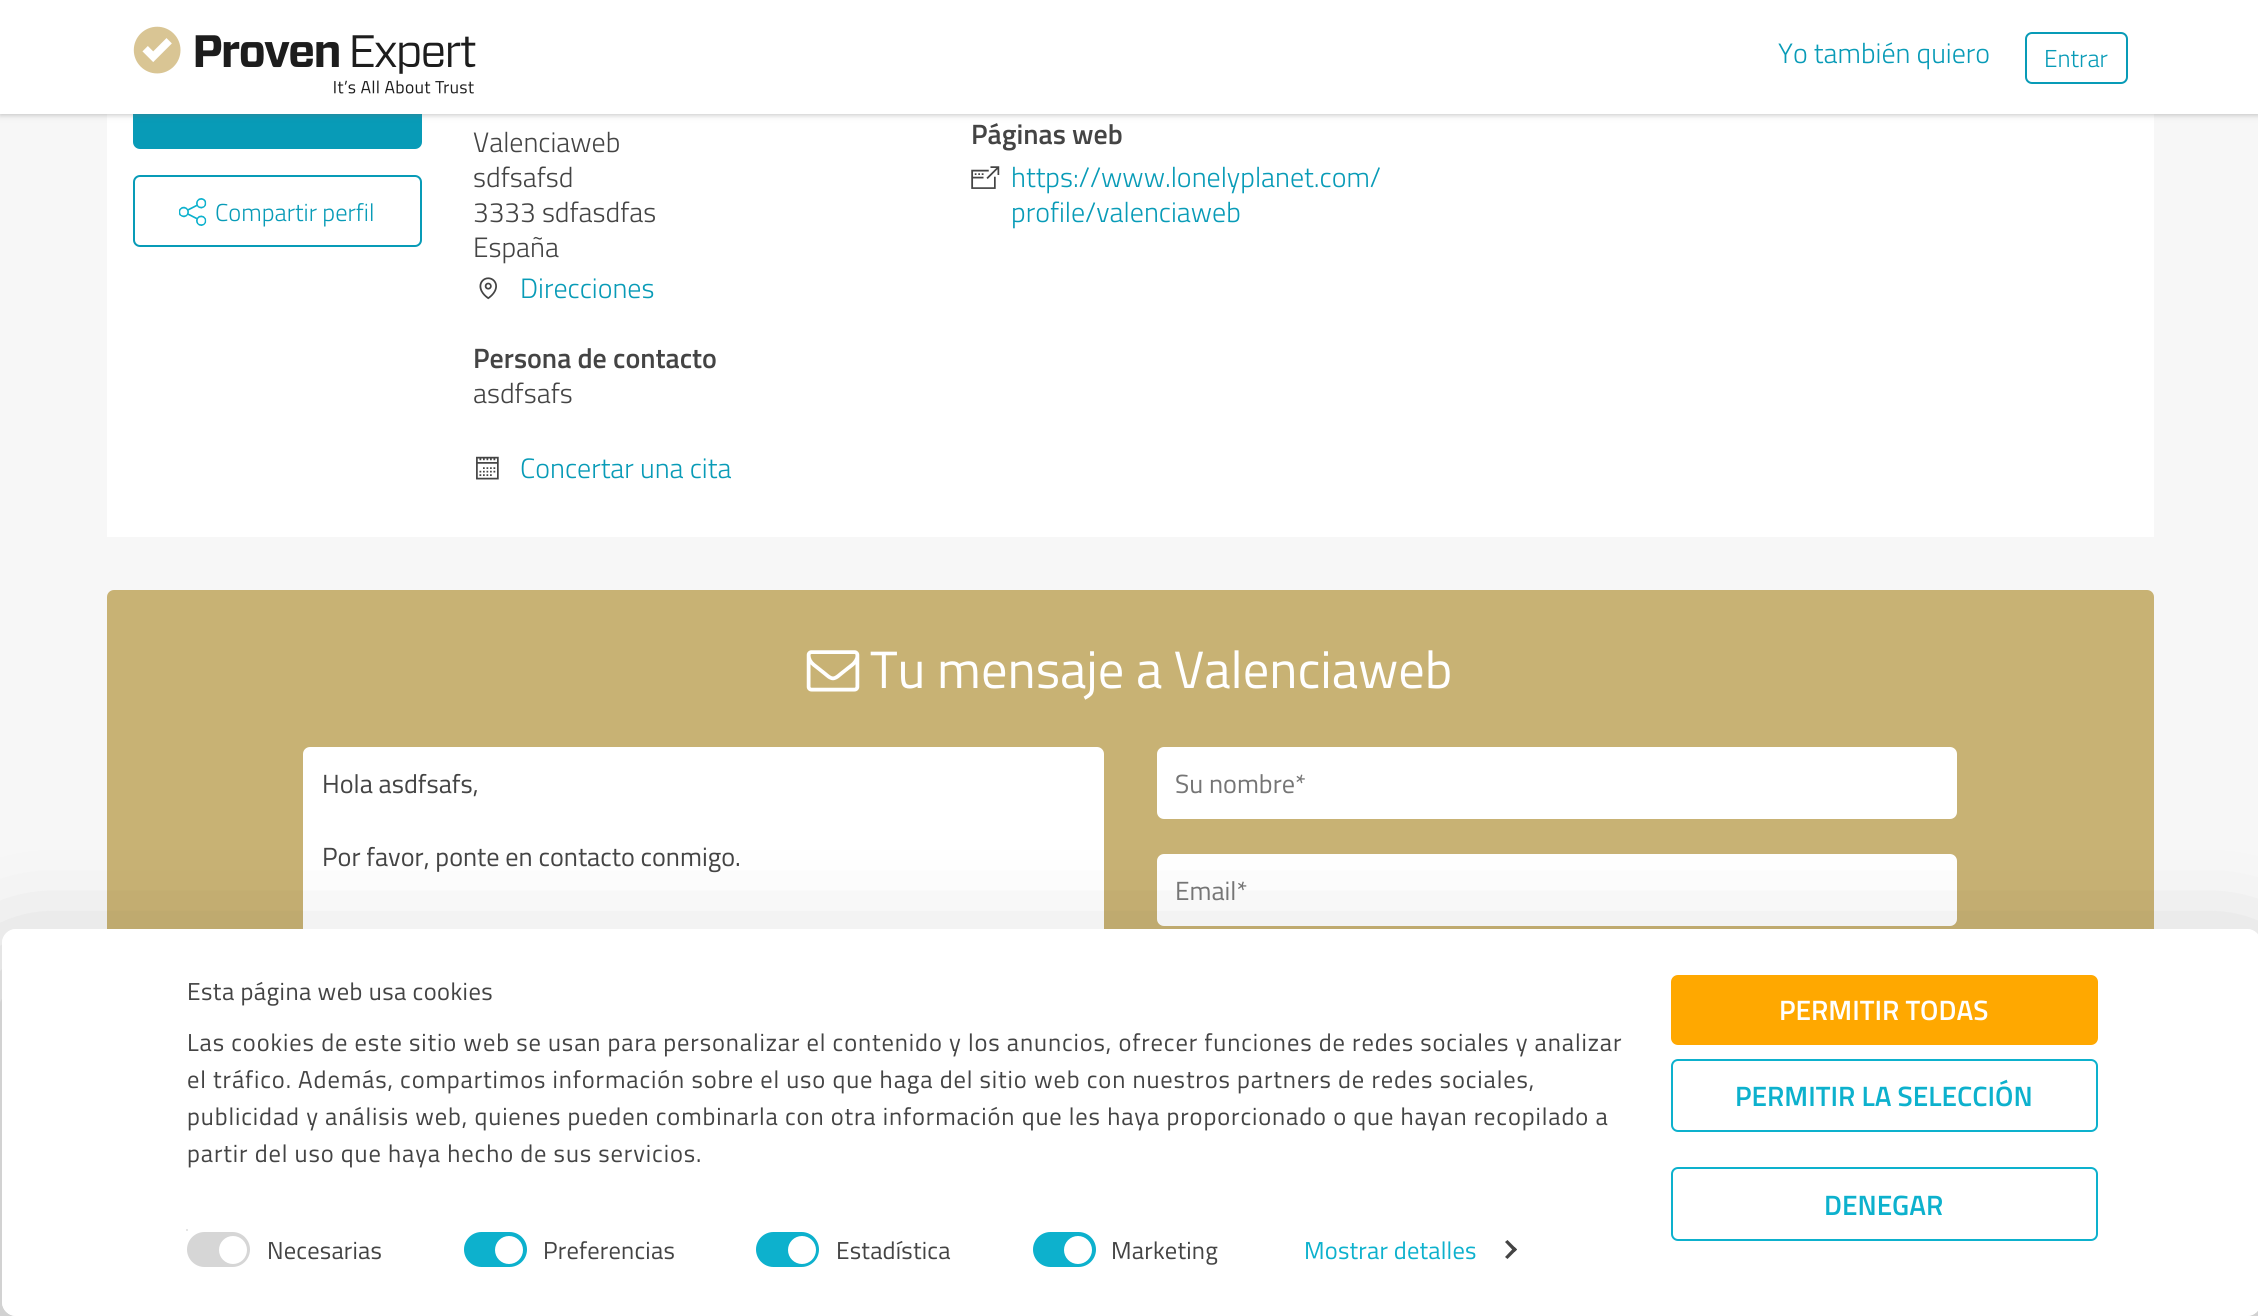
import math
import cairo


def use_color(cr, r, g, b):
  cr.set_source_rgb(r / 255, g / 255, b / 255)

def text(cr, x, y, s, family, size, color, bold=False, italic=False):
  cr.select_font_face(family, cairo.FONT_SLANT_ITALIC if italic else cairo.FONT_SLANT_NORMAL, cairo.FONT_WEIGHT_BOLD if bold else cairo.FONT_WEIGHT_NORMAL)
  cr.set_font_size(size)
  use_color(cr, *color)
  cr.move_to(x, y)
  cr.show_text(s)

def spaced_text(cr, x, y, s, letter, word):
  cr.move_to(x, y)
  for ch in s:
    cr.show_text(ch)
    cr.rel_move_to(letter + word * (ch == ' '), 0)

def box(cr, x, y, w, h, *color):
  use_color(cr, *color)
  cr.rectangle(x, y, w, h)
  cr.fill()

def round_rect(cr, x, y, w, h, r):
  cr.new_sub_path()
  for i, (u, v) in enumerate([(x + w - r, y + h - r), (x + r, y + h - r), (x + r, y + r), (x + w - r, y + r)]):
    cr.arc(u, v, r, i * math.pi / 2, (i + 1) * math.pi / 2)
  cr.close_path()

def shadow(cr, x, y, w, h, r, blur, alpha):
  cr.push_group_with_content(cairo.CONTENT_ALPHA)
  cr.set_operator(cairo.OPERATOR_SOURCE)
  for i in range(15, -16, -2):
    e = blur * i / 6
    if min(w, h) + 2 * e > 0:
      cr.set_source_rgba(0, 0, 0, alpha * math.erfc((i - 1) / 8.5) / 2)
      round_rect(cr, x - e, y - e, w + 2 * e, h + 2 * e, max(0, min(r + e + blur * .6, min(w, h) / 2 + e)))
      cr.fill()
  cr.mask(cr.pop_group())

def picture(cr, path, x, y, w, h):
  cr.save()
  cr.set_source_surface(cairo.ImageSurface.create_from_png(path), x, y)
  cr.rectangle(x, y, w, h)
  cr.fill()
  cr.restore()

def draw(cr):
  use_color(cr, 247, 247, 247)
  cr.paint()
  box(cr, 107, 114, 2047, 423, 255, 255, 255)
  use_color(cr, 8, 155, 183)
  round_rect(cr, 133, 77, 289, 72, 7)
  cr.fill()
  use_color(cr, 105, 105, 105)
  shadow(cr, 0, 0, 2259, 114, 0, 3.5, 0.5)
  box(cr, 0, 0, 2258, 114, 255, 255, 255)
  picture(cr, "img_01.png", 133, 26, 343, 68)
  round_rect(cr, 2026, 33, 101, 50, 6)
  use_color(cr, 8, 155, 183)
  cr.stroke()
  round_rect(cr, 134, 176, 287, 70, 6)
  cr.stroke()
  picture(cr, "img_02.png", 179, 198, 28, 28)
  picture(cr, "img_03.png", 479, 277, 18, 23)
  picture(cr, "img_04.png", 476, 456, 23, 24)
  picture(cr, "img_05.png", 971, 166, 29, 23)
  use_color(cr, 200, 178, 116)
  round_rect(cr, 107, 590, 2047, 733, 7)
  cr.fill()
  picture(cr, "img_06.png", 806, 650, 54, 42)
  use_color(cr, 255, 255, 255)
  round_rect(cr, 303, 747, 801, 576, 7)
  cr.fill()
  round_rect(cr, 1157, 747, 800, 72, 7)
  cr.fill()
  round_rect(cr, 1157, 854, 800, 72, 7)
  cr.fill()
  cr.save()
  cr.set_fill_rule(cairo.FILL_RULE_EVEN_ODD)
  cr.new_path()
  cr.move_to(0, 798)
  cr.line_to(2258, 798)
  cr.line_to(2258, 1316)
  cr.line_to(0, 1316)
  cr.close_path()
  cr.move_to(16, 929)
  cr.line_to(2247, 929)
  cr.curve_to(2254.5, 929, 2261, 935.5, 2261, 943)
  cr.line_to(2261, 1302)
  cr.curve_to(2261, 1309.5, 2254.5, 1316, 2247, 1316)
  cr.line_to(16, 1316)
  cr.curve_to(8.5, 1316, 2, 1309.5, 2, 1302)
  cr.line_to(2, 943)
  cr.curve_to(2, 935.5, 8.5, 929, 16, 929)
  cr.close_path()
  cr.clip()
  use_color(cr, 0, 0, 0)
  shadow(cr, 2, 982, 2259, 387, 14, 61, 0.3)
  cr.restore()
  round_rect(cr, 2, 929, 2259, 387, 14)
  cr.fill()
  box(cr, 186, 1229, 2, 2, 229, 229, 229)
  use_color(cr, 214, 214, 214)
  round_rect(cr, 187, 1232, 63, 35, 17.5)
  cr.fill()
  use_color(cr, 255, 255, 255)
  cr.arc(233, 1250, 14, 0, 2 * math.pi)
  cr.fill()
  use_color(cr, 13, 177, 205)
  round_rect(cr, 464, 1232, 63, 35, 17.5)
  cr.fill()
  use_color(cr, 255, 255, 255)
  cr.arc(509, 1250, 14, 0, 2 * math.pi)
  cr.fill()
  use_color(cr, 13, 177, 205)
  round_rect(cr, 756, 1232, 63, 35, 17.5)
  cr.fill()
  use_color(cr, 255, 255, 255)
  cr.arc(802, 1250, 14, 0, 2 * math.pi)
  cr.fill()
  use_color(cr, 13, 177, 205)
  round_rect(cr, 1033, 1232, 63, 35, 17.5)
  cr.fill()
  use_color(cr, 255, 255, 255)
  cr.arc(1078, 1250, 14, 0, 2 * math.pi)
  cr.fill()
  use_color(cr, 68, 68, 68)
  cr.new_path()
  cr.move_to(1507.5, 1240)
  cr.line_to(1517, 1249.5)
  cr.line_to(1514.5, 1252)
  cr.line_to(1505, 1242)
  cr.close_path()
  cr.fill()
  cr.new_path()
  cr.move_to(1514.5, 1247)
  cr.line_to(1517, 1249.5)
  cr.line_to(1507.5, 1259)
  cr.line_to(1505, 1257)
  cr.close_path()
  cr.fill()
  use_color(cr, 255, 168, 0)
  round_rect(cr, 1671, 975, 427, 70, 7)
  cr.fill()
  round_rect(cr, 1672, 1060, 425, 71, 6)
  use_color(cr, 13, 177, 205)
  cr.stroke()
  round_rect(cr, 1672, 1168, 425, 72, 6)
  cr.stroke()
  text(cr, 1778, 63, "Yo también quiero", "Titillium Web Light", 28, (8, 155, 183))
  text(cr, 2044, 67, "Entrar", "Titillium Web Light", 24.5, (8, 155, 183))
  text(cr, 215, 221, "Compartir perfil", "Titillium Web Light", 24.5, (8, 155, 183))
  text(cr, 473, 152, "Valenciaweb", "Titillium Web Light", 28, (68, 68, 68))
  text(cr, 473, 187, "sdfsafsd", "Titillium Web Light", 28, (68, 68, 68))
  text(cr, 473, 222, "3333 sdfasdfas", "Titillium Web Light", 28, (68, 68, 68))
  text(cr, 473, 257, "España", "Titillium Web Light", 28, (68, 68, 68))
  text(cr, 520, 298, "Direcciones", "Titillium Web Light", 28, (8, 155, 183))
  text(cr, 473, 368, "Persona de contacto", "Titillium Web SemiBold", 28, (68, 68, 68))
  text(cr, 473, 403, "asdfsafs", "Titillium Web Light", 28, (68, 68, 68))
  text(cr, 520, 478, "Concertar una cita", "Titillium Web Light", 28, (8, 155, 183))
  text(cr, 971, 144, "Páginas web", "Titillium Web SemiBold", 28, (68, 68, 68))
  text(cr, 1011, 187, "https://www.lonelyplanet.com/", "Titillium Web Light", 28, (8, 155, 183))
  text(cr, 1011, 222, "profile/valenciaweb", "Titillium Web Light", 28, (8, 155, 183))
  text(cr, 870, 688, "Tu mensaje a Valenciaweb", "Titillium Web", 52.5, (255, 255, 255))
  text(cr, 322, 793, "Hola asdfsafs,", "Titillium Web", 26.25, (68, 68, 68))
  text(cr, 322, 866, "Por favor, ponte en contacto conmigo.", "Titillium Web", 26.25, (68, 68, 68))
  text(cr, 1175, 793, "Su nombre*", "Titillium Web", 26.25, (117, 117, 117))
  text(cr, 1175, 900, "Email*", "Titillium Web", 26.25, (117, 117, 117))
  cr.set_font_size(24.5)
  use_color(cr, 68, 68, 68)
  spaced_text(cr, 187, 1000, "Esta página web usa cookies", 0.45, 0)
  spaced_text(cr, 187, 1051, "Las cookies de este sitio web se usan para personalizar el contenido y los anuncios, ofrecer funciones de redes sociales y analizar", 0.88, 0)
  spaced_text(cr, 187, 1088, "el tráfico. Además, compartimos información sobre el uso que haga del sitio web con nuestros partners de redes sociales,", 0.88, 0)
  spaced_text(cr, 187, 1125, "publicidad y análisis web, quienes pueden combinarla con otra información que les haya proporcionado o que hayan recopilado a", 0.88, 0)
  spaced_text(cr, 187, 1162, "partir del uso que haya hecho de sus servicios.", 0.88, 0)
  spaced_text(cr, 267, 1259, "Necesarias", 0.2, 0)
  spaced_text(cr, 543, 1259, "Preferencias", 0.2, 0)
  spaced_text(cr, 836, 1259, "Estadística", 0.2, 0)
  spaced_text(cr, 1111, 1259, "Marketing", 0.2, 0)
  use_color(cr, 13, 177, 205)
  spaced_text(cr, 1304, 1259, "Mostrar detalles", 0.2, 0)
  text(cr, 1779, 1020, "PERMITIR TODAS", "Titillium Web SemiBold", 28, (255, 255, 255))
  text(cr, 1735, 1106, "PERMITIR LA SELECCIÓN", "Titillium Web SemiBold", 28, (13, 177, 205))
  text(cr, 1824, 1215, "DENEGAR", "Titillium Web SemiBold", 28, (13, 177, 205))


surface = cairo.ImageSurface(cairo.FORMAT_RGB24, 2258, 1316)
cr = cairo.Context(surface)
options = cairo.FontOptions()
options.set_hint_metrics(cairo.HINT_METRICS_OFF)
options.set_hint_style(cairo.HINT_STYLE_NONE)
cr.set_font_options(options)
cr.set_miter_limit(4)
draw(cr)
surface.write_to_png("out.png")
